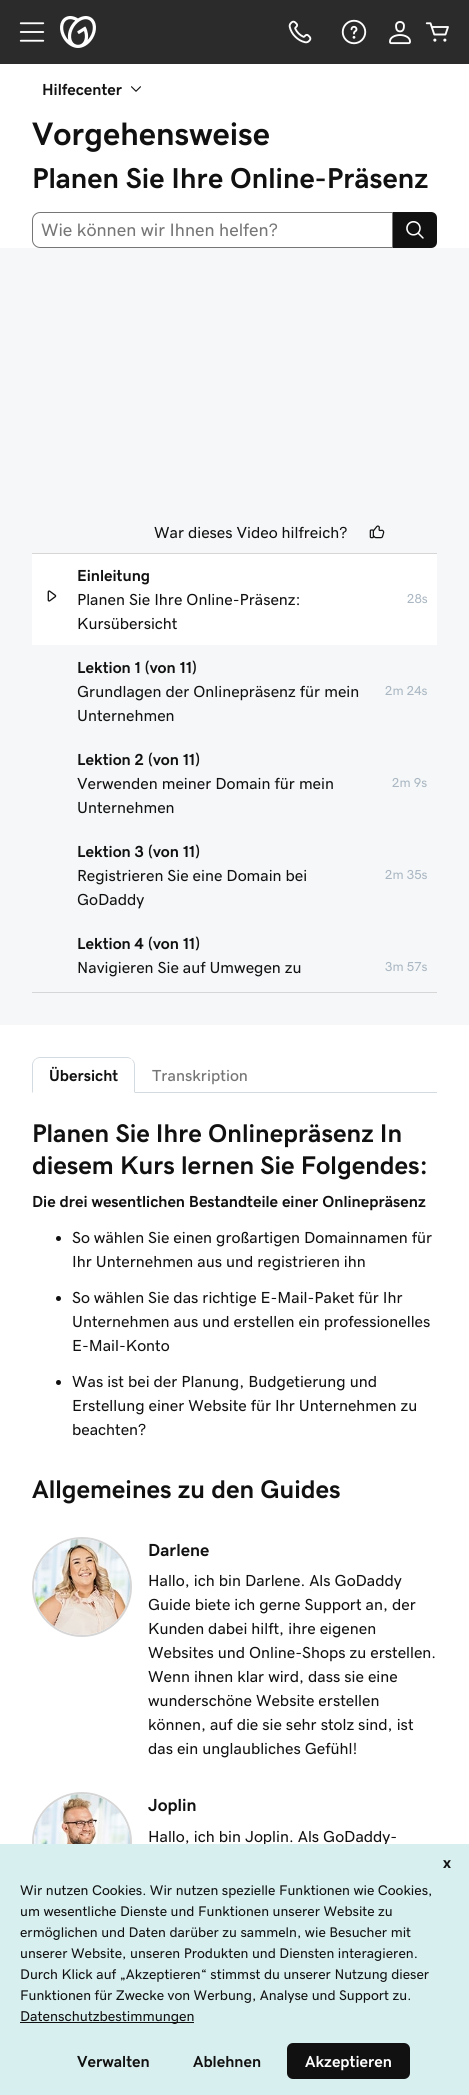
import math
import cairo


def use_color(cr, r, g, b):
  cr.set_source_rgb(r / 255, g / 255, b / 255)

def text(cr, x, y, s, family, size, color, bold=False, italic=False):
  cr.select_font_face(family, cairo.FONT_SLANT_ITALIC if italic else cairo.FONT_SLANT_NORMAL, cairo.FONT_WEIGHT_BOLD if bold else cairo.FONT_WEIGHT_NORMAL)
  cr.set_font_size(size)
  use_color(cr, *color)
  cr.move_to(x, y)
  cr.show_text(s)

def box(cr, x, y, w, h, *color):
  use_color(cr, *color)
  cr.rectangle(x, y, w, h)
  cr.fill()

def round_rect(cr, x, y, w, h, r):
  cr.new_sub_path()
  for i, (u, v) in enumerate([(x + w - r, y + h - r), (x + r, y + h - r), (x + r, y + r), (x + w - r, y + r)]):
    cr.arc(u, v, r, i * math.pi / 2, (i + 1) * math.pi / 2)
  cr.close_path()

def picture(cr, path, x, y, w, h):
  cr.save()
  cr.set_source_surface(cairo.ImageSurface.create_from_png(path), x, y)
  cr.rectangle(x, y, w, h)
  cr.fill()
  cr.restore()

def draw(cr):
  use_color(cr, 255, 255, 255)
  cr.paint()
  box(cr, 0, 0, 469, 64, 43, 43, 43)
  picture(cr, "img_01.png", 19, 22, 26, 20)
  picture(cr, "img_02.png", 60, 16, 36, 32)
  picture(cr, "img_03.png", 288, 20, 24, 24)
  picture(cr, "img_04.png", 341, 19, 26, 26)
  picture(cr, "img_05.png", 389, 21, 22, 24)
  picture(cr, "img_06.png", 425, 22, 24, 20)
  picture(cr, "img_07.png", 131, 86, 10, 6)
  cr.new_path()
  cr.move_to(40, 212.5)
  cr.line_to(392.5, 212.5)
  cr.line_to(392.5, 247.5)
  cr.line_to(40, 247.5)
  cr.curve_to(36, 247.5, 32.5, 244, 32.5, 240)
  cr.line_to(32.5, 220)
  cr.curve_to(32.5, 216, 36, 212.5, 40, 212.5)
  cr.close_path()
  use_color(cr, 118, 118, 118)
  cr.set_line_width(1)
  cr.stroke()
  use_color(cr, 17, 17, 17)
  cr.new_path()
  cr.move_to(393, 212)
  cr.line_to(431, 212)
  cr.curve_to(434.5, 212, 437, 214.5, 437, 218)
  cr.line_to(437, 242)
  cr.curve_to(437, 245.5, 434.5, 248, 431, 248)
  cr.line_to(393, 248)
  cr.close_path()
  cr.fill()
  picture(cr, "img_08.png", 406, 221, 18, 18)
  box(cr, 0, 248, 469, 777, 245, 247, 248)
  picture(cr, "img_09.png", 369, 525, 16, 14)
  box(cr, 32, 553, 405, 1, 214, 214, 214)
  box(cr, 32, 992, 405, 1, 214, 214, 214)
  box(cr, 32, 554, 405, 91, 255, 255, 255)
  picture(cr, "img_10.png", 47, 590, 10, 12)
  box(cr, 135, 1092, 302, 1, 212, 219, 224)
  cr.new_path()
  cr.move_to(40, 1057)
  cr.curve_to(38, 1057, 36, 1058, 34, 1060)
  cr.line_to(35, 1060)
  cr.curve_to(36, 1059, 38, 1058, 40, 1058)
  cr.line_to(127, 1058)
  cr.curve_to(129, 1058, 131, 1059, 132, 1060)
  cr.curve_to(131, 1058, 129, 1057, 127, 1057)
  cr.close_path()
  cr.fill()
  cr.new_path()
  cr.move_to(135, 1093)
  cr.line_to(135, 1065)
  cr.curve_to(135, 1063, 134, 1061, 132.5, 1059.5)
  cr.line_to(132, 1060)
  cr.curve_to(133, 1061, 134, 1063, 134, 1065)
  cr.line_to(134, 1092)
  cr.close_path()
  cr.fill()
  cr.new_path()
  cr.move_to(32, 1093)
  cr.line_to(33, 1092)
  cr.line_to(33, 1065)
  cr.curve_to(33, 1063, 34, 1061, 35, 1060)
  cr.line_to(34.5, 1059.5)
  cr.curve_to(33, 1061, 32, 1063, 32, 1065)
  cr.close_path()
  cr.fill()
  use_color(cr, 17, 17, 17)
  cr.arc(58.5, 1238.5, 2.5, 0, 2 * math.pi)
  cr.fill()
  cr.arc(58.5, 1298.5, 2.5, 0, 2 * math.pi)
  cr.fill()
  cr.arc(58.5, 1382.5, 2.5, 0, 2 * math.pi)
  cr.fill()
  cr.arc(82, 1587, 49, 0, 2 * math.pi)
  use_color(cr, 214, 214, 214)
  cr.set_line_width(2)
  cr.stroke()
  picture(cr, "img_11.png", 34, 1539, 96, 96)
  cr.arc(82, 1842, 49, 0, 2 * math.pi)
  cr.stroke()
  picture(cr, "img_12.png", 34, 1794, 96, 50)
  text(cr, 42, 95, "Hilfecenter", "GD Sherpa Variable", 16, (17, 17, 17), bold=True)
  text(cr, 32, 145, "Vorgehensweise", "GD Sherpa Variable ExtraBold", 32.5, (17, 17, 17))
  text(cr, 32, 188, "Planen Sie Ihre Online-Präsenz", "GD Sherpa Variable", 28.8, (17, 17, 17), bold=True)
  text(cr, 41, 236, "Wie können wir Ihnen helfen?", "GD Sherpa Variable", 18, (118, 118, 118))
  text(cr, 154, 538, "War dieses Video hilfreich?", "GD Sherpa Variable", 16, (17, 17, 17))
  text(cr, 77, 581, "Einleitung", "GD Sherpa Variable", 16, (17, 17, 17), bold=True)
  text(cr, 77, 605, "Planen Sie Ihre Online-Präsenz:", "GD Sherpa Variable", 16, (17, 17, 17))
  text(cr, 77, 629, "Kursübersicht", "GD Sherpa Variable", 16, (17, 17, 17))
  text(cr, 407, 603, "28s", "GD Sherpa Variable", 13, (170, 183, 194))
  text(cr, 77, 673, "Lektion 1 (von 11)", "GD Sherpa Variable", 16, (17, 17, 17), bold=True)
  text(cr, 77, 697, "Grundlagen der Onlinepräsenz für mein", "GD Sherpa Variable", 16, (17, 17, 17))
  text(cr, 77, 721, "Unternehmen", "GD Sherpa Variable", 16, (17, 17, 17))
  text(cr, 385, 695, "2m 24s", "GD Sherpa Variable", 13, (170, 183, 194))
  text(cr, 77, 765, "Lektion 2 (von 11)", "GD Sherpa Variable", 16, (17, 17, 17), bold=True)
  text(cr, 77, 789, "Verwenden meiner Domain für mein", "GD Sherpa Variable", 16, (17, 17, 17))
  text(cr, 77, 813, "Unternehmen", "GD Sherpa Variable", 16, (17, 17, 17))
  text(cr, 392, 787, "2m 9s", "GD Sherpa Variable", 13, (170, 183, 194))
  text(cr, 77, 857, "Lektion 3 (von 11)", "GD Sherpa Variable", 16, (17, 17, 17), bold=True)
  text(cr, 77, 881, "Registrieren Sie eine Domain bei", "GD Sherpa Variable", 16, (17, 17, 17))
  text(cr, 77, 905, "GoDaddy", "GD Sherpa Variable", 16, (17, 17, 17))
  text(cr, 385, 879, "2m 35s", "GD Sherpa Variable", 13, (170, 183, 194))
  text(cr, 77, 949, "Lektion 4 (von 11)", "GD Sherpa Variable", 16, (17, 17, 17), bold=True)
  text(cr, 77, 973, "Navigieren Sie auf Umwegen zu", "GD Sherpa Variable", 16, (17, 17, 17))
  text(cr, 385, 971, "3m 57s", "GD Sherpa Variable", 13, (170, 183, 194))
  text(cr, 49, 1081, "Übersicht", "GD Sherpa Variable", 16, (17, 17, 17), bold=True)
  text(cr, 152, 1081, "Transkription", "GD Sherpa Variable Medium", 16, (118, 118, 118))
  text(cr, 32, 1142, "Planen Sie Ihre Onlinepräsenz In", "GD Sherpa Variable ExtraBold", 25.6, (17, 17, 17))
  text(cr, 32, 1174, "diesem Kurs lernen Sie Folgendes:", "GD Sherpa Variable ExtraBold", 25.6, (17, 17, 17))
  text(cr, 32, 1207, "Die drei wesentlichen Bestandteile einer Onlinepräsenz", "GD Sherpa Variable", 16, (17, 17, 17), bold=True)
  text(cr, 72, 1243, "So wählen Sie einen großartigen Domainnamen für", "GD Sherpa Variable", 16, (17, 17, 17))
  text(cr, 72, 1267, "Ihr Unternehmen aus und registrieren ihn", "GD Sherpa Variable", 16, (17, 17, 17))
  text(cr, 72, 1303, "So wählen Sie das richtige E-Mail-Paket für Ihr", "GD Sherpa Variable", 16, (17, 17, 17))
  text(cr, 72, 1327, "Unternehmen aus und erstellen ein professionelles", "GD Sherpa Variable", 16, (17, 17, 17))
  text(cr, 72, 1351, "E-Mail-Konto", "GD Sherpa Variable", 16, (17, 17, 17))
  text(cr, 72, 1387, "Was ist bei der Planung, Budgetierung und", "GD Sherpa Variable", 16, (17, 17, 17))
  text(cr, 72, 1411, "Erstellung einer Website für Ihr Unternehmen zu", "GD Sherpa Variable", 16, (17, 17, 17))
  text(cr, 72, 1435, "beachten?", "GD Sherpa Variable", 16, (17, 17, 17))
  text(cr, 32, 1498, "Allgemeines zu den Guides", "GD Sherpa Variable ExtraBold", 25.6, (17, 17, 17))
  text(cr, 148, 1556, "Darlene", "GD Sherpa Variable", 17.5, (17, 17, 17), bold=True)
  text(cr, 148, 1586, "Hallo, ich bin Darlene. Als GoDaddy", "GD Sherpa Variable", 16, (17, 17, 17))
  text(cr, 148, 1610, "Guide biete ich gerne Support an, der", "GD Sherpa Variable", 16, (17, 17, 17))
  text(cr, 148, 1634, "Kunden dabei hilft, ihre eigenen", "GD Sherpa Variable", 16, (17, 17, 17))
  text(cr, 148, 1658, "Websites und Online-Shops zu erstellen.", "GD Sherpa Variable", 16, (17, 17, 17))
  text(cr, 148, 1682, "Wenn ihnen klar wird, dass sie eine", "GD Sherpa Variable", 16, (17, 17, 17))
  text(cr, 148, 1706, "wunderschöne Website erstellen", "GD Sherpa Variable", 16, (17, 17, 17))
  text(cr, 148, 1730, "können, auf die sie sehr stolz sind, ist", "GD Sherpa Variable", 16, (17, 17, 17))
  text(cr, 148, 1754, "das ein unglaubliches Gefühl!", "GD Sherpa Variable", 16, (17, 17, 17))
  text(cr, 148, 1811, "Joplin", "GD Sherpa Variable", 17.5, (17, 17, 17), bold=True)
  text(cr, 148, 1842, "Hallo, ich bin Joplin. Als GoDaddy-", "GD Sherpa Variable", 16, (17, 17, 17))
  box(cr, 0, 1844, 469, 251, 216, 239, 239)
  text(cr, 443, 1868, "x", "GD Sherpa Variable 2", 16, (17, 17, 17), bold=True)
  text(cr, 20, 1895, "Wir nutzen Cookies. Wir nutzen spezielle Funktionen wie Cookies,", "GD Sherpa Variable", 14, (17, 17, 17))
  text(cr, 20, 1916, "um wesentliche Dienste und Funktionen unserer Website zu", "GD Sherpa Variable", 14, (17, 17, 17))
  text(cr, 20, 1937, "ermöglichen und Daten darüber zu sammeln, wie Besucher mit", "GD Sherpa Variable", 14, (17, 17, 17))
  text(cr, 20, 1958, "unserer Website, unseren Produkten und Diensten interagieren.", "GD Sherpa Variable", 14, (17, 17, 17))
  text(cr, 20, 1979, "Durch Klick auf „Akzeptieren“ stimmst du unserer Nutzung dieser", "GD Sherpa Variable", 14, (17, 17, 17))
  text(cr, 20, 2000, "Funktionen für Zwecke von Werbung, Analyse und Support zu.", "GD Sherpa Variable", 14, (17, 17, 17))
  box(cr, 20, 2022, 174, 1, 17, 17, 17)
  text(cr, 20, 2021, "Datenschutzbestimmungen", "GD Sherpa Variable", 14.25, (17, 17, 17))
  text(cr, 77, 2067, "Verwalten", "GD Sherpa Variable 2", 16, (17, 17, 17), bold=True)
  text(cr, 193, 2067, "Ablehnen", "GD Sherpa Variable 2", 16, (17, 17, 17), bold=True)
  round_rect(cr, 287, 2043, 123, 36, 6)
  cr.fill()
  text(cr, 305, 2067, "Akzeptieren", "GD Sherpa Variable 2", 16, (255, 255, 255), bold=True)


surface = cairo.ImageSurface(cairo.FORMAT_RGB24, 469, 2095)
cr = cairo.Context(surface)
options = cairo.FontOptions()
options.set_hint_metrics(cairo.HINT_METRICS_OFF)
options.set_hint_style(cairo.HINT_STYLE_NONE)
cr.set_font_options(options)
cr.set_miter_limit(4)
draw(cr)
surface.write_to_png("out.png")
